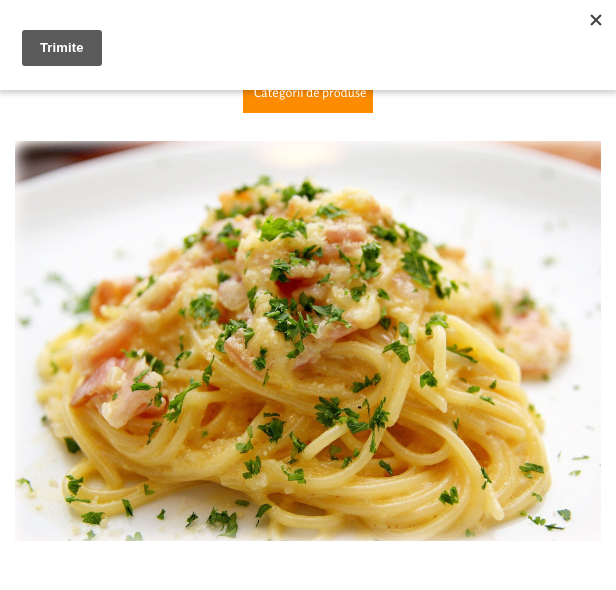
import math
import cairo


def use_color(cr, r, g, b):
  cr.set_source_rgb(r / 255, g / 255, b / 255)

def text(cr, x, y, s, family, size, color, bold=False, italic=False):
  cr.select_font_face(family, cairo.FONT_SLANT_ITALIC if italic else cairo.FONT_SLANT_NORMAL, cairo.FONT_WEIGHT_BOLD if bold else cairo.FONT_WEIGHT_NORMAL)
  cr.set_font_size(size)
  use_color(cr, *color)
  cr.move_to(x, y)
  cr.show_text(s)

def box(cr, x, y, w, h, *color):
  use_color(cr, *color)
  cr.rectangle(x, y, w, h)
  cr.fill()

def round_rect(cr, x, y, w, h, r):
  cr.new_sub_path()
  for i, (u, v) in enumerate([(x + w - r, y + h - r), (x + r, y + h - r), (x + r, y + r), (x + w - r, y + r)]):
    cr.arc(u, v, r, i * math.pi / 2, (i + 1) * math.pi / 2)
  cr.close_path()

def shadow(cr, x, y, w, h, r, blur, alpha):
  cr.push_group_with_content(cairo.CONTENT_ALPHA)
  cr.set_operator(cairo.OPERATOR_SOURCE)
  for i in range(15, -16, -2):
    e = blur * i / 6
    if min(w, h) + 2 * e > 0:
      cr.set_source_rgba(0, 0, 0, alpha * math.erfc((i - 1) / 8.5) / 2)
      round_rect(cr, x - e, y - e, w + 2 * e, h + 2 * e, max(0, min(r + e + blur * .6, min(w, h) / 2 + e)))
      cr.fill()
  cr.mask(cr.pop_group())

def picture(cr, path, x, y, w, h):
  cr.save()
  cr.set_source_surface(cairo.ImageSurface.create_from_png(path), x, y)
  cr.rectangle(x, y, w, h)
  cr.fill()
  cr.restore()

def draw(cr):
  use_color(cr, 255, 255, 255)
  cr.paint()
  box(cr, 243, 90, 130, 23, 255, 140, 0)
  use_color(cr, 0, 0, 0)
  shadow(cr, 0, 3, 616, 90, 0, 3, 0.2)
  box(cr, 0, 0, 616, 90, 255, 255, 255)
  picture(cr, "img_01.png", 22, 14, 580, 52)
  picture(cr, "img_02.png", 15, 141, 586, 400)
  text(cr, 254, 97, "Categorii de produse", "Alegreya Sans", 14, (255, 255, 255))


surface = cairo.ImageSurface(cairo.FORMAT_RGB24, 616, 590)
cr = cairo.Context(surface)
options = cairo.FontOptions()
options.set_hint_metrics(cairo.HINT_METRICS_OFF)
options.set_hint_style(cairo.HINT_STYLE_NONE)
cr.set_font_options(options)
cr.set_miter_limit(4)
draw(cr)
surface.write_to_png("out.png")
